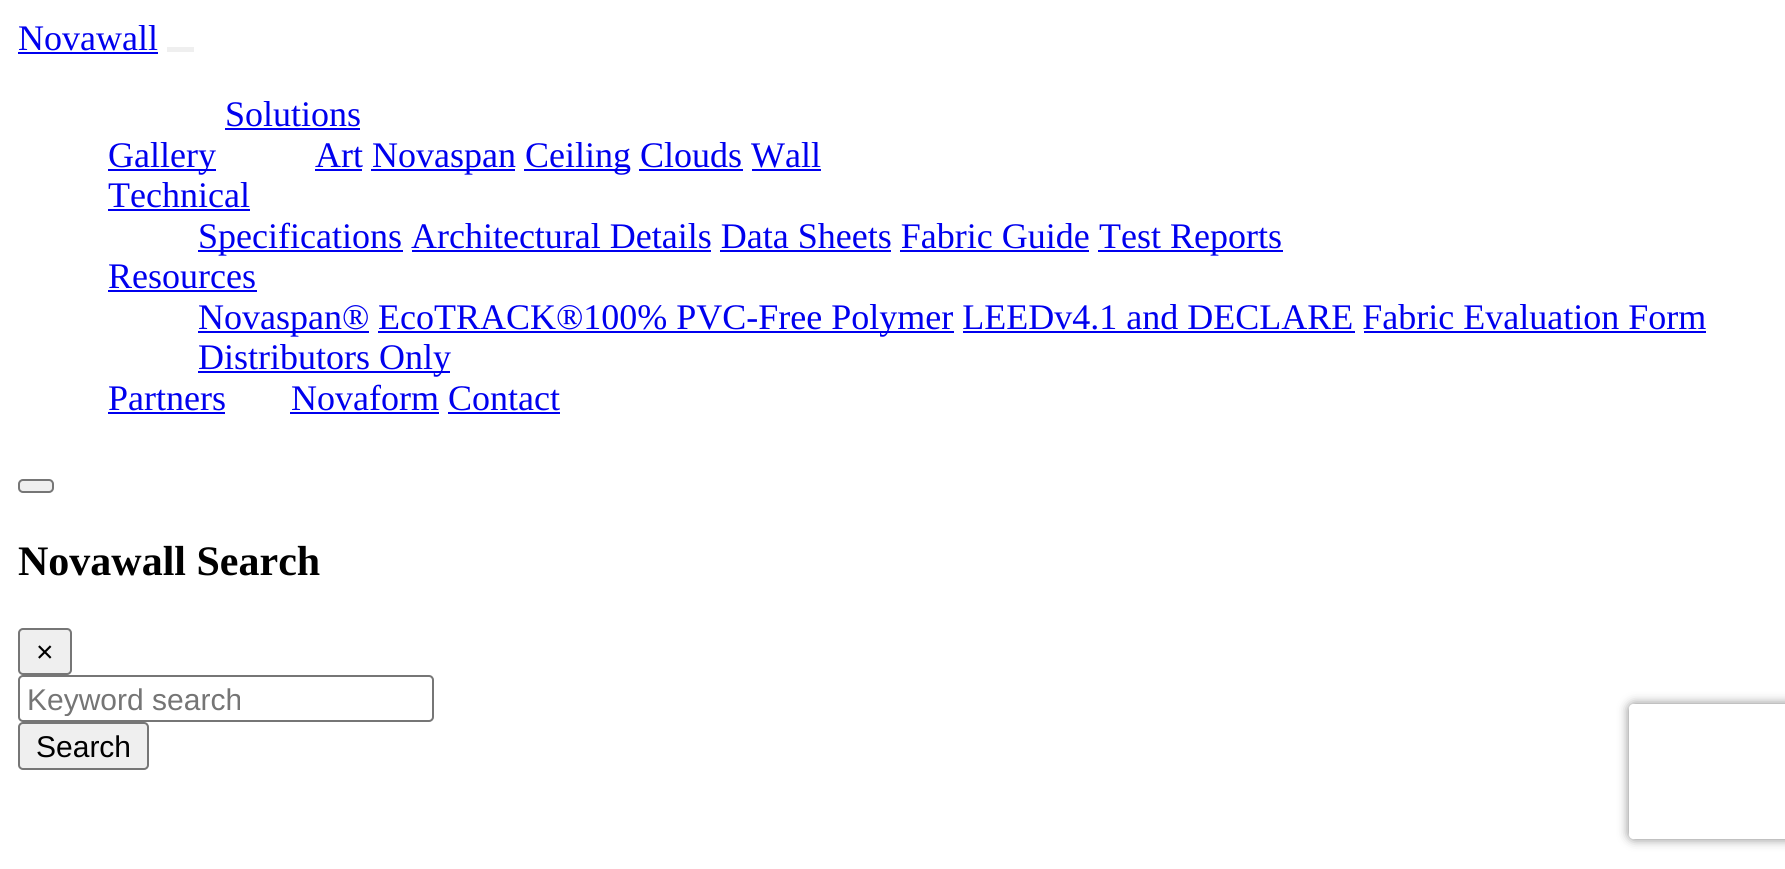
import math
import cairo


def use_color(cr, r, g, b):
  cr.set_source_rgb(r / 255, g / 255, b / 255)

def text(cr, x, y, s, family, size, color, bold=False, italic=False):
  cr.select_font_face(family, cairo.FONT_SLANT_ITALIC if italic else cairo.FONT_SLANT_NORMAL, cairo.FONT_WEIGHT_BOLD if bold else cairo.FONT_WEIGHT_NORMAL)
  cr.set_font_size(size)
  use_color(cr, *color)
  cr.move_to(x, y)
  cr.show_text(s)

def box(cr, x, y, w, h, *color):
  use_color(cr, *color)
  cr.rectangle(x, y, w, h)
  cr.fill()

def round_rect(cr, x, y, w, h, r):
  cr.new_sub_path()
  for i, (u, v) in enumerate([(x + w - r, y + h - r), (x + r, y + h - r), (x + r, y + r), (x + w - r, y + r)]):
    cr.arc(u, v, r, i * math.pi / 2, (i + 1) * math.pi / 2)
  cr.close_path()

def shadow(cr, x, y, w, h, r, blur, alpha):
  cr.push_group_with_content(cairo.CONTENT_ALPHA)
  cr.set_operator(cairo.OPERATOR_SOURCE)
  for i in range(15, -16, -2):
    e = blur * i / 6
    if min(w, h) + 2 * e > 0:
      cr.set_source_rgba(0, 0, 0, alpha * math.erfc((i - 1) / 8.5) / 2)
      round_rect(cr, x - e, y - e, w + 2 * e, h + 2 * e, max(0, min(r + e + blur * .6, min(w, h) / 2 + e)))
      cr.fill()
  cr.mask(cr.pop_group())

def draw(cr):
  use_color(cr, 255, 255, 255)
  cr.paint()
  box(cr, 18, 52, 140, 2, 0, 0, 238)
  box(cr, 167, 47, 27, 5, 239, 239, 239)
  box(cr, 108, 169, 108, 2, 0, 0, 238)
  box(cr, 225, 128, 135, 2, 0, 0, 238)
  box(cr, 315, 169, 47, 2, 0, 0, 238)
  box(cr, 371, 169, 144, 2, 0, 0, 238)
  box(cr, 524, 169, 106, 2, 0, 0, 238)
  box(cr, 639, 169, 104, 2, 0, 0, 238)
  box(cr, 752, 169, 69, 2, 0, 0, 238)
  box(cr, 108, 209, 142, 2, 0, 0, 238)
  box(cr, 198, 250, 205, 2, 0, 0, 238)
  box(cr, 1098, 250, 185, 2, 0, 0, 238)
  box(cr, 412, 250, 299, 2, 0, 0, 238)
  box(cr, 720, 250, 171, 2, 0, 0, 238)
  box(cr, 900, 250, 189, 2, 0, 0, 238)
  box(cr, 108, 290, 149, 2, 0, 0, 238)
  box(cr, 198, 331, 171, 2, 0, 0, 238)
  box(cr, 378, 331, 576, 2, 0, 0, 238)
  box(cr, 963, 331, 392, 2, 0, 0, 238)
  box(cr, 1364, 331, 342, 2, 0, 0, 238)
  box(cr, 198, 371, 252, 2, 0, 0, 238)
  box(cr, 108, 412, 117, 2, 0, 0, 238)
  box(cr, 290, 412, 149, 2, 0, 0, 238)
  box(cr, 448, 412, 112, 2, 0, 0, 238)
  use_color(cr, 239, 239, 239)
  round_rect(cr, 19, 480, 34, 12, 4)
  cr.fill_preserve()
  use_color(cr, 118, 118, 118)
  cr.stroke()
  use_color(cr, 239, 239, 239)
  round_rect(cr, 19, 629, 52, 45, 4)
  cr.fill_preserve()
  use_color(cr, 118, 118, 118)
  cr.stroke()
  round_rect(cr, 19, 676, 414, 45, 4)
  cr.stroke()
  use_color(cr, 239, 239, 239)
  round_rect(cr, 19, 723, 129, 46, 4)
  cr.fill_preserve()
  use_color(cr, 118, 118, 118)
  cr.stroke()
  cr.save()
  cr.set_fill_rule(cairo.FILL_RULE_EVEN_ODD)
  cr.new_path()
  cr.move_to(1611, 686)
  cr.line_to(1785, 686)
  cr.line_to(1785, 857)
  cr.line_to(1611, 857)
  cr.close_path()
  cr.move_to(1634, 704)
  cr.line_to(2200, 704)
  cr.curve_to(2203, 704, 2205, 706, 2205, 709)
  cr.line_to(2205, 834)
  cr.curve_to(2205, 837, 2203, 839, 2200, 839)
  cr.line_to(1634, 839)
  cr.curve_to(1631, 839, 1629, 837, 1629, 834)
  cr.line_to(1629, 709)
  cr.curve_to(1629, 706, 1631, 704, 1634, 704)
  cr.close_path()
  cr.clip()
  use_color(cr, 128, 128, 128)
  shadow(cr, 1629, 704, 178, 135, 5, 5.5, 1)
  cr.restore()
  text(cr, 18, 50, "Novawall", "Liberation Serif", 36, (0, 0, 238))
  text(cr, 108, 167, "Gallery", "Liberation Serif", 36, (0, 0, 238))
  text(cr, 225, 126, "Solutions", "Liberation Serif", 36, (0, 0, 238))
  text(cr, 315, 167, "Art", "Liberation Serif", 36, (0, 0, 238))
  text(cr, 372, 167, "Novaspan", "Liberation Serif", 36, (0, 0, 238))
  text(cr, 525, 167, "Ceiling Clouds Wall", "Liberation Serif", 36, (0, 0, 238))
  text(cr, 108, 207, "Technical", "Liberation Serif", 36, (0, 0, 238))
  text(cr, 198, 248, "Specifications Architectural Details Data Sheets Fabric Guide", "Liberation Serif", 36, (0, 0, 238))
  text(cr, 1099, 248, "Test Reports", "Liberation Serif", 36, (0, 0, 238))
  text(cr, 108, 288, "Resources", "Liberation Serif", 36, (0, 0, 238))
  text(cr, 198, 329, "Novaspan®", "Liberation Serif", 36, (0, 0, 238))
  text(cr, 378, 329, "EcoTRACK®100% PVC-Free Polymer LEEDv4.1 and DECLARE Fabric Evaluation Form", "Liberation Serif", 36, (0, 0, 238))
  text(cr, 198, 369, "Distributors Only", "Liberation Serif", 36, (0, 0, 238))
  text(cr, 108, 410, "Partners", "Liberation Serif", 36, (0, 0, 238))
  text(cr, 291, 410, "Novaform", "Liberation Serif", 36, (0, 0, 238))
  text(cr, 448, 410, "Contact", "Liberation Serif", 36, (0, 0, 238))
  text(cr, 18, 575, "Novawall Search", "Liberation Serif", 42, (0, 0, 0), bold=True)
  text(cr, 36, 662, "×", "Liberation Sans", 30, (0, 0, 0))
  cr.save()
  cr.rectangle(27, 682, 369, 34)
  cr.clip()
  text(cr, 27, 710, "Keyword search", "Liberation Sans", 30, (117, 117, 117))
  cr.restore()
  text(cr, 36, 757, "Search", "Liberation Sans", 30, (0, 0, 0))


surface = cairo.ImageSurface(cairo.FORMAT_RGB24, 1785, 869)
cr = cairo.Context(surface)
options = cairo.FontOptions()
options.set_hint_metrics(cairo.HINT_METRICS_OFF)
options.set_hint_style(cairo.HINT_STYLE_NONE)
cr.set_font_options(options)
cr.set_miter_limit(4)
draw(cr)
surface.write_to_png("out.png")
